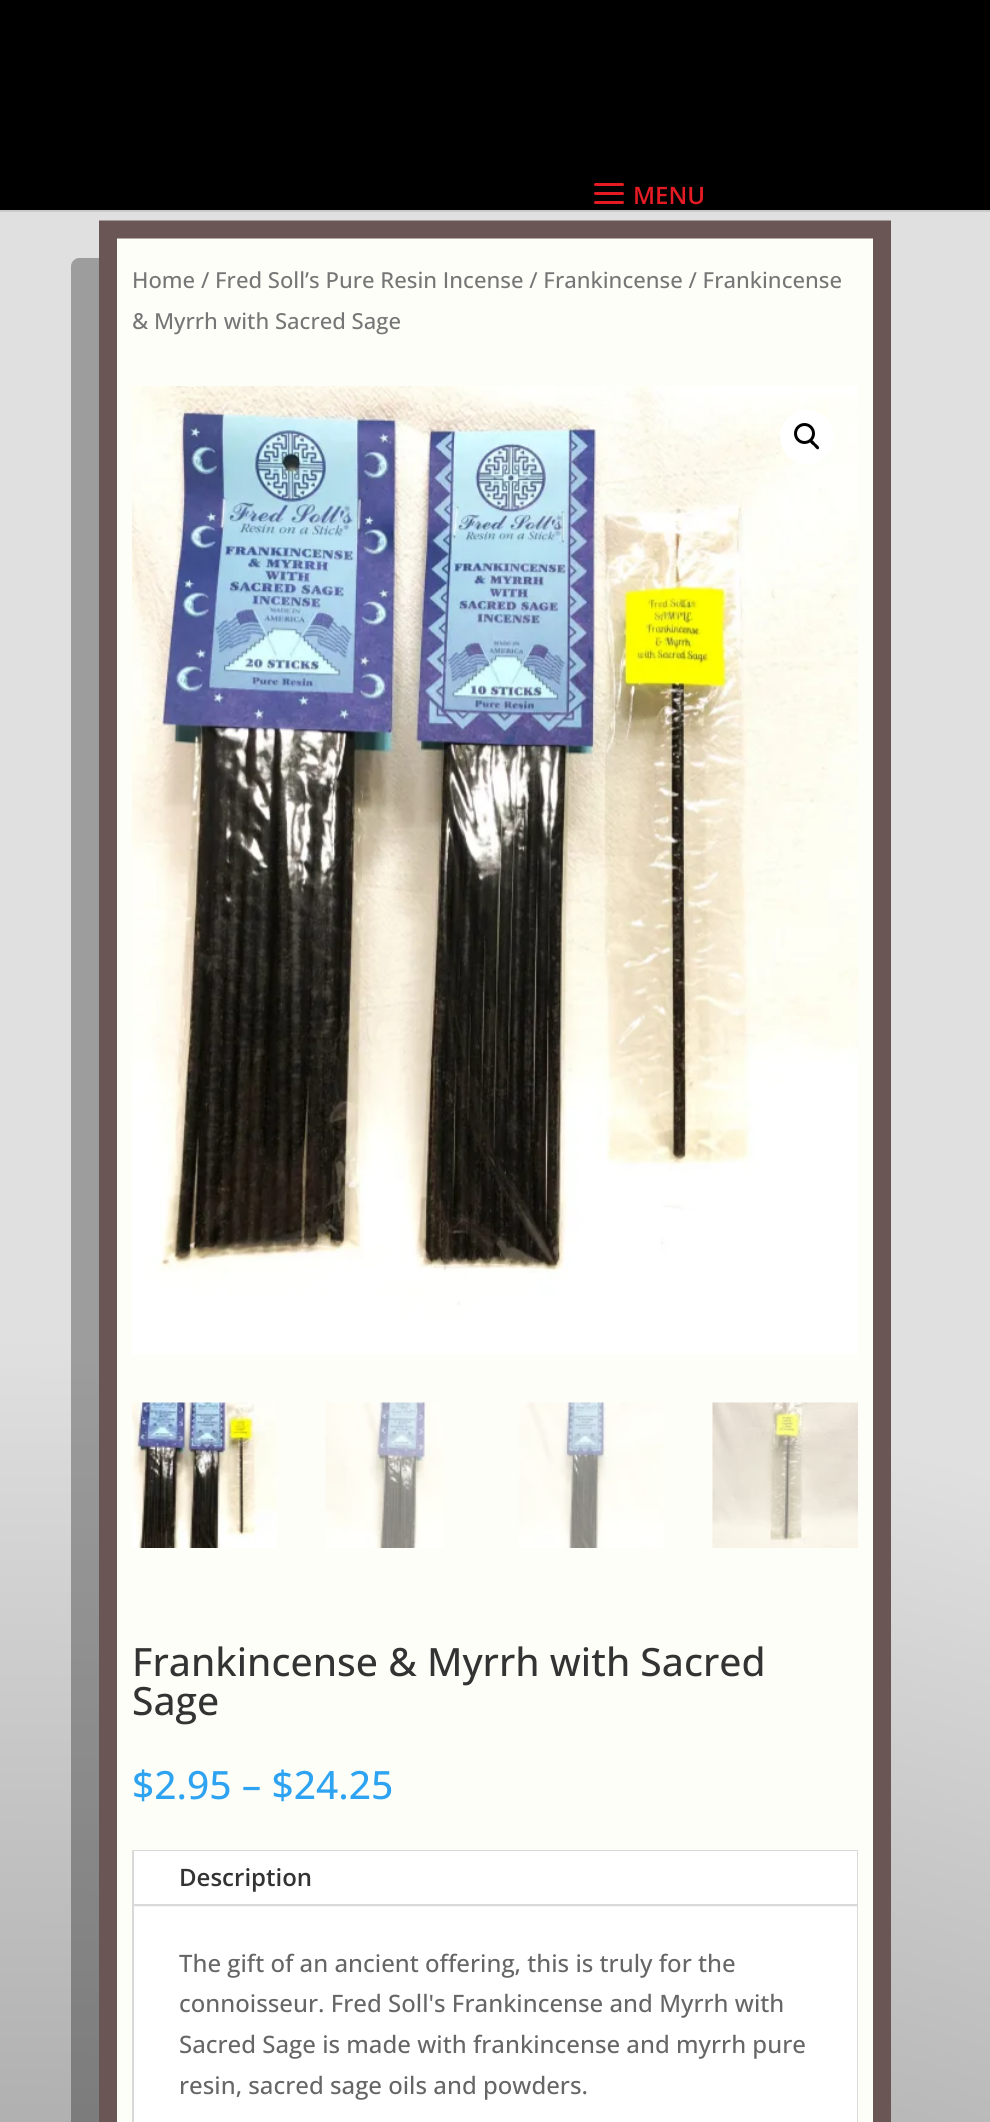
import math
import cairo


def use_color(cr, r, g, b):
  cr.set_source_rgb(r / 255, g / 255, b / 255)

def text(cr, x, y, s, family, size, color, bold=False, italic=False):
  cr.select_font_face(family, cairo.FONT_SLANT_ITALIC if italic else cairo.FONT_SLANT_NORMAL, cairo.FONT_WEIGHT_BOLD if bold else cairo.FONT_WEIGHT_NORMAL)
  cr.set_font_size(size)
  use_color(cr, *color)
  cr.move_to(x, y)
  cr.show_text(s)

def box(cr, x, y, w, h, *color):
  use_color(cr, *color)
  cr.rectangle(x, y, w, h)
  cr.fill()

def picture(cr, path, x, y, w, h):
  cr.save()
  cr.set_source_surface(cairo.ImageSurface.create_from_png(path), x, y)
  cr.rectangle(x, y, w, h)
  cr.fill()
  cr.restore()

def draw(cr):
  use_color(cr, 255, 255, 255)
  cr.paint()
  box(cr, 0, 210, 990, 2, 202, 202, 202)
  box(cr, 0, 0, 990, 210, 0, 0, 0)
  picture(cr, "img_01.png", 594, 183, 30, 21)
  gradient = cairo.RadialGradient(0, 5028, 0, 0, 5028, 4920)
  gradient.add_color_stop_rgba(0, 0, 0, 0, 1)
  gradient.add_color_stop_rgba(0.75, 0.878, 0.878, 0.878, 1)
  cr.set_source(gradient)
  cr.rectangle(0, 212, 990, 1910)
  cr.fill()
  cr.set_source_rgba(0, 0, 0, 0.3)
  cr.new_path()
  cr.move_to(79, 258)
  cr.curve_to(75, 258, 71, 262, 71, 266)
  cr.line_to(71, 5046)
  cr.curve_to(71, 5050, 75, 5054, 79, 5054)
  cr.line_to(855, 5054)
  cr.curve_to(859, 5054, 863, 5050, 863, 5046)
  cr.line_to(863, 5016)
  cr.line_to(106, 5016)
  cr.curve_to(102, 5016, 99, 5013, 99, 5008)
  cr.line_to(99, 258)
  cr.close_path()
  cr.fill()
  box(cr, 117, 238, 756, 1884, 254, 254, 248)
  cr.new_path()
  cr.move_to(108, 229.5)
  cr.line_to(882, 229.5)
  cr.line_to(882, 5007)
  cr.line_to(108, 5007)
  cr.close_path()
  use_color(cr, 107, 86, 86)
  cr.set_line_width(18)
  cr.stroke()
  picture(cr, "img_02.png", 132, 386, 726, 969)
  use_color(cr, 255, 255, 255)
  cr.arc(807, 437, 27, 0, 2 * math.pi)
  cr.fill()
  cr.arc(804.5, 433.5, 9, 0, 2 * math.pi)
  use_color(cr, 0, 0, 0)
  cr.set_line_width(3)
  cr.stroke()
  cr.new_path()
  cr.move_to(810.5, 440.5)
  cr.curve_to(812, 438.5, 814.5, 442.5, 815.5, 443.5)
  cr.curve_to(816.5, 444.5, 820.5, 447, 818.5, 449)
  cr.curve_to(817, 450.5, 814.5, 446.5, 813.5, 445.5)
  cr.curve_to(812.5, 445, 808.5, 442, 810.5, 440.5)
  cr.close_path()
  cr.fill()
  picture(cr, "img_03.png", 132, 1402, 145, 146)
  picture(cr, "img_04.png", 325, 1402, 118, 146)
  picture(cr, "img_05.png", 519, 1402, 145, 146)
  picture(cr, "img_06.png", 712, 1402, 146, 146)
  cr.rectangle(133, 1851, 724, 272)
  use_color(cr, 217, 217, 217)
  cr.set_line_width(2)
  cr.stroke()
  box(cr, 134, 1906, 723, 1, 244, 244, 244)
  box(cr, 134, 1851, 723, 53, 255, 255, 255)
  box(cr, 134, 1904, 723, 2, 217, 217, 217)
  box(cr, 134, 1907, 723, 215, 255, 255, 255)
  text(cr, 633, 204, "MENU", "Open Sans SemiBold", 24, (229, 27, 35))
  text(cr, 132, 288, "Home / Fred Soll’s Pure Resin Incense / Frankincense / Frankincense", "Open Sans Medium", 22.1, (118, 118, 118))
  text(cr, 132, 329, "& Myrrh with Sacred Sage", "Open Sans Medium", 22.1, (118, 118, 118))
  text(cr, 132, 1676, "Frankincense & Myrrh with Sacred", "Open Sans Medium", 39, (51, 51, 51))
  text(cr, 132, 1715, "Sage", "Open Sans Medium", 39, (51, 51, 51))
  text(cr, 132, 1799, "$2.95 – $24.25", "Open Sans Medium", 39, (46, 163, 242))
  text(cr, 179, 1886, "Description", "Open Sans SemiBold", 24, (51, 51, 51))
  text(cr, 179, 1972, "The gift of an ancient offering, this is truly for the", "Open Sans Medium", 24, (102, 102, 102))
  text(cr, 179, 2012, "connoisseur. Fred Soll's Frankincense and Myrrh with", "Open Sans Medium", 24, (102, 102, 102))
  text(cr, 179, 2053, "Sacred Sage is made with frankincense and myrrh pure", "Open Sans Medium", 24, (102, 102, 102))
  text(cr, 179, 2094, "resin, sacred sage oils and powders.", "Open Sans Medium", 24, (102, 102, 102))


surface = cairo.ImageSurface(cairo.FORMAT_RGB24, 990, 2122)
cr = cairo.Context(surface)
options = cairo.FontOptions()
options.set_hint_metrics(cairo.HINT_METRICS_OFF)
options.set_hint_style(cairo.HINT_STYLE_NONE)
cr.set_font_options(options)
cr.set_miter_limit(4)
draw(cr)
surface.write_to_png("out.png")
